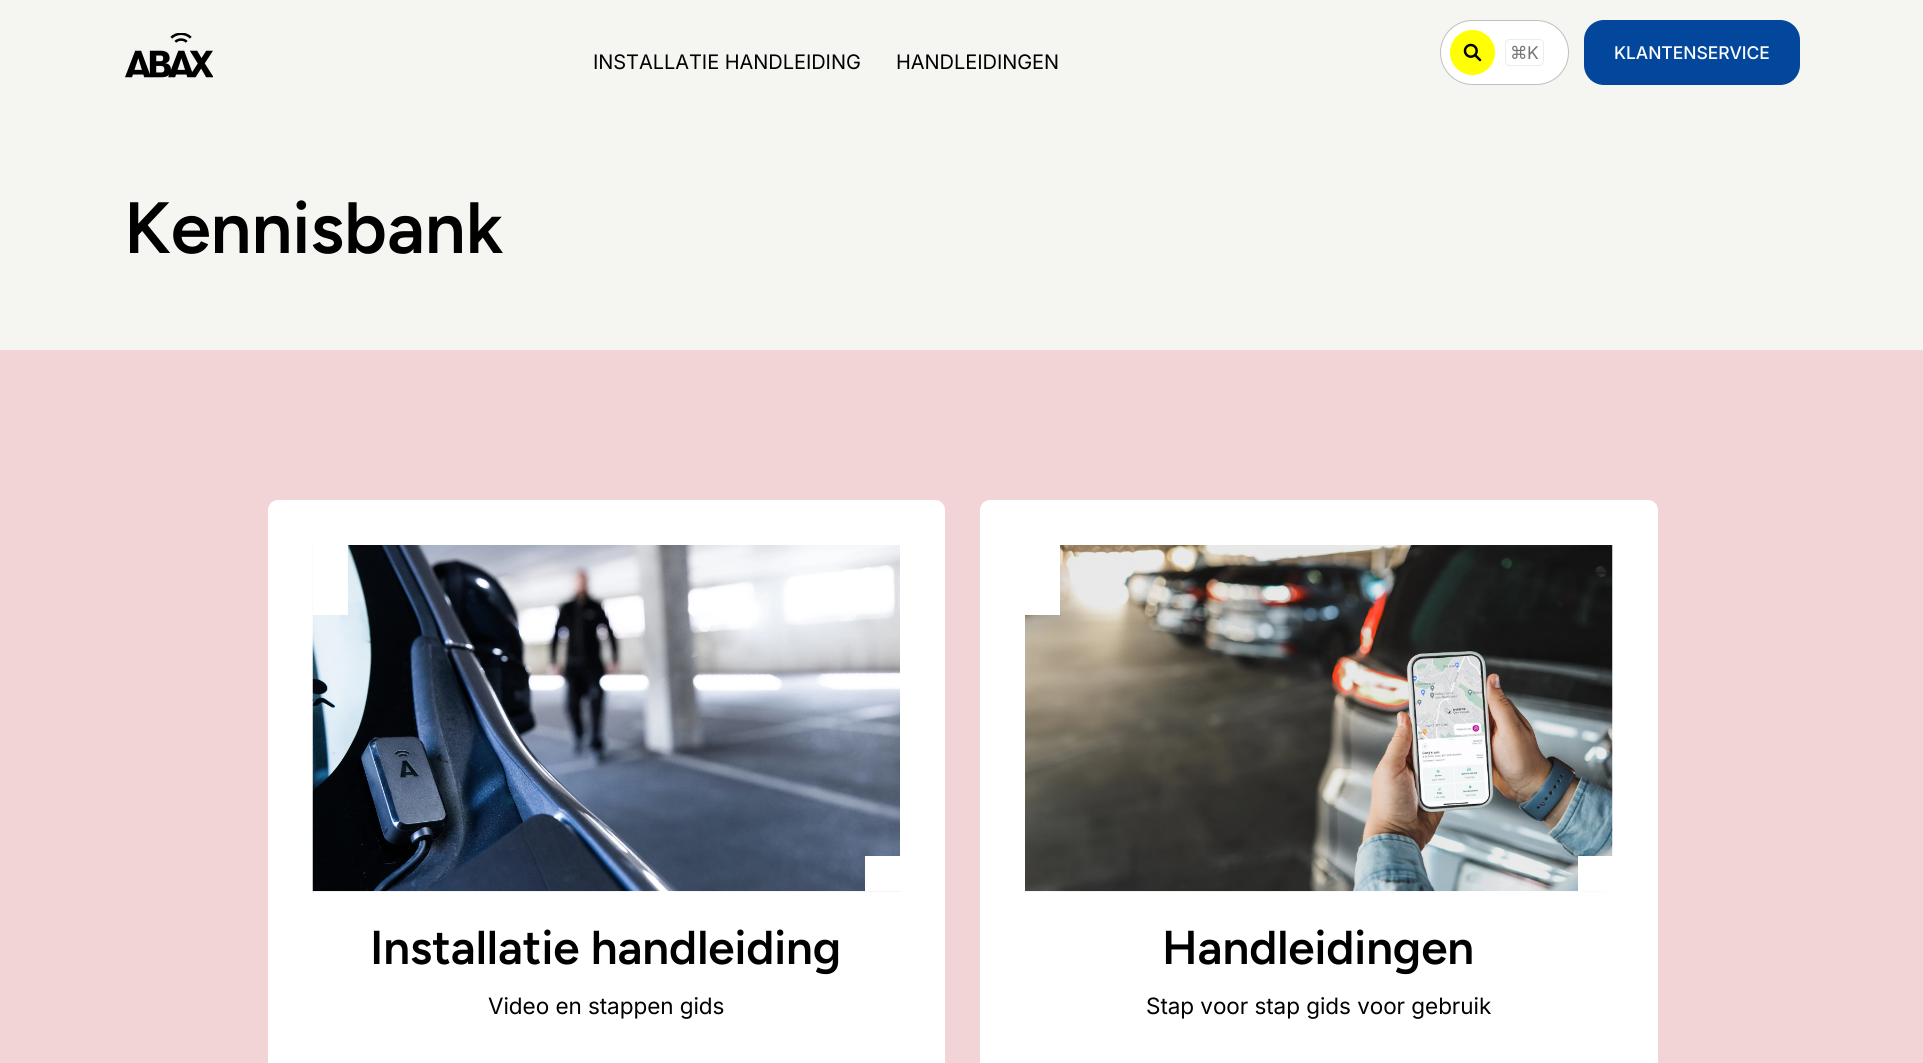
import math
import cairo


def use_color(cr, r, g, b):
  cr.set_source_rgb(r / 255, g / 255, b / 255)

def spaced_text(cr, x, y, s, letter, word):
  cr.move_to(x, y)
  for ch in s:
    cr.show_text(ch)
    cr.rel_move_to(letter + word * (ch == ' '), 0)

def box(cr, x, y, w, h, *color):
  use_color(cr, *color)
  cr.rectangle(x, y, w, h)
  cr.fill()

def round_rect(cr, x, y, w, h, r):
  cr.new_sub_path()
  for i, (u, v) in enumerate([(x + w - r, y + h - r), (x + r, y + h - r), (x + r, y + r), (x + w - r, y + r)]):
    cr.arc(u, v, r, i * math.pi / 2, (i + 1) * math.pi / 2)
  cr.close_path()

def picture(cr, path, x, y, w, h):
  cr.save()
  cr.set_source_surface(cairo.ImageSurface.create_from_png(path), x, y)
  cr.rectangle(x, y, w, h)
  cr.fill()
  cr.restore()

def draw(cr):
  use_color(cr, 245, 245, 242)
  cr.paint()
  picture(cr, "img_01.png", 125, 33, 88, 45)
  use_color(cr, 255, 255, 255)
  round_rect(cr, 1440.5, 20.5, 128, 64, 32)
  cr.fill_preserve()
  use_color(cr, 191, 191, 191)
  cr.set_line_width(1)
  cr.stroke()
  use_color(cr, 255, 255, 1)
  cr.arc(1472.5, 52.5, 22.5, 0, 2 * math.pi)
  cr.fill()
  picture(cr, "img_02.png", 1463, 43, 19, 19)
  round_rect(cr, 1505.5, 39.5, 38, 26, 4.5)
  use_color(cr, 236, 236, 234)
  cr.stroke()
  use_color(cr, 2, 71, 156)
  round_rect(cr, 1584, 20, 216, 65, 20)
  cr.fill()
  box(cr, 0, 350, 1923, 713, 242, 212, 214)
  use_color(cr, 255, 255, 255)
  round_rect(cr, 268, 500, 677, 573, 10)
  cr.fill()
  picture(cr, "img_03.png", 312, 545, 588, 347)
  box(cr, 313, 545, 35, 70, 255, 255, 255)
  box(cr, 865, 856, 35, 35, 255, 255, 255)
  round_rect(cr, 980, 500, 678, 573, 10)
  cr.fill()
  picture(cr, "img_04.png", 1025, 545, 588, 347)
  box(cr, 1025, 545, 35, 70, 255, 255, 255)
  box(cr, 1578, 856, 35, 35, 255, 255, 255)
  cr.select_font_face("DejaVu Sans")
  cr.set_font_size(17.5)
  use_color(cr, 117, 117, 117)
  spaced_text(cr, 1510, 59, "⌘", -0.05, 0)
  cr.select_font_face("Inter")
  spaced_text(cr, 1527, 59, "K", -0.05, 0)
  cr.select_font_face("Inter Medium")
  use_color(cr, 255, 255, 255)
  spaced_text(cr, 1614, 59, "KLANTENSERVICE", -0.05, 0)
  cr.select_font_face("Inter")
  cr.set_font_size(20)
  use_color(cr, 0, 0, 0)
  spaced_text(cr, 593, 69, "INSTALLATIE HANDLEIDING", -0.05, 0)
  spaced_text(cr, 896, 69, "HANDLEIDINGEN", -0.05, 0)
  cr.select_font_face("Figtree SemiBold")
  cr.set_font_size(72.5)
  spaced_text(cr, 124, 253, "Kennisbank", -0.05, 0)
  cr.set_font_size(47.5)
  spaced_text(cr, 370, 964, "Installatie handleiding", -0.05, 0)
  cr.select_font_face("Inter")
  cr.set_font_size(22.5)
  spaced_text(cr, 488, 1014, "Video en stappen gids", -0.05, 0)
  cr.select_font_face("Figtree SemiBold")
  cr.set_font_size(47.5)
  spaced_text(cr, 1162, 964, "Handleidingen", -0.05, 0)
  cr.select_font_face("Inter")
  cr.set_font_size(22.5)
  spaced_text(cr, 1146, 1014, "Stap voor stap gids voor gebruik", -0.05, 0)


surface = cairo.ImageSurface(cairo.FORMAT_RGB24, 1923, 1063)
cr = cairo.Context(surface)
options = cairo.FontOptions()
options.set_hint_metrics(cairo.HINT_METRICS_OFF)
options.set_hint_style(cairo.HINT_STYLE_NONE)
cr.set_font_options(options)
cr.set_miter_limit(4)
draw(cr)
surface.write_to_png("out.png")
